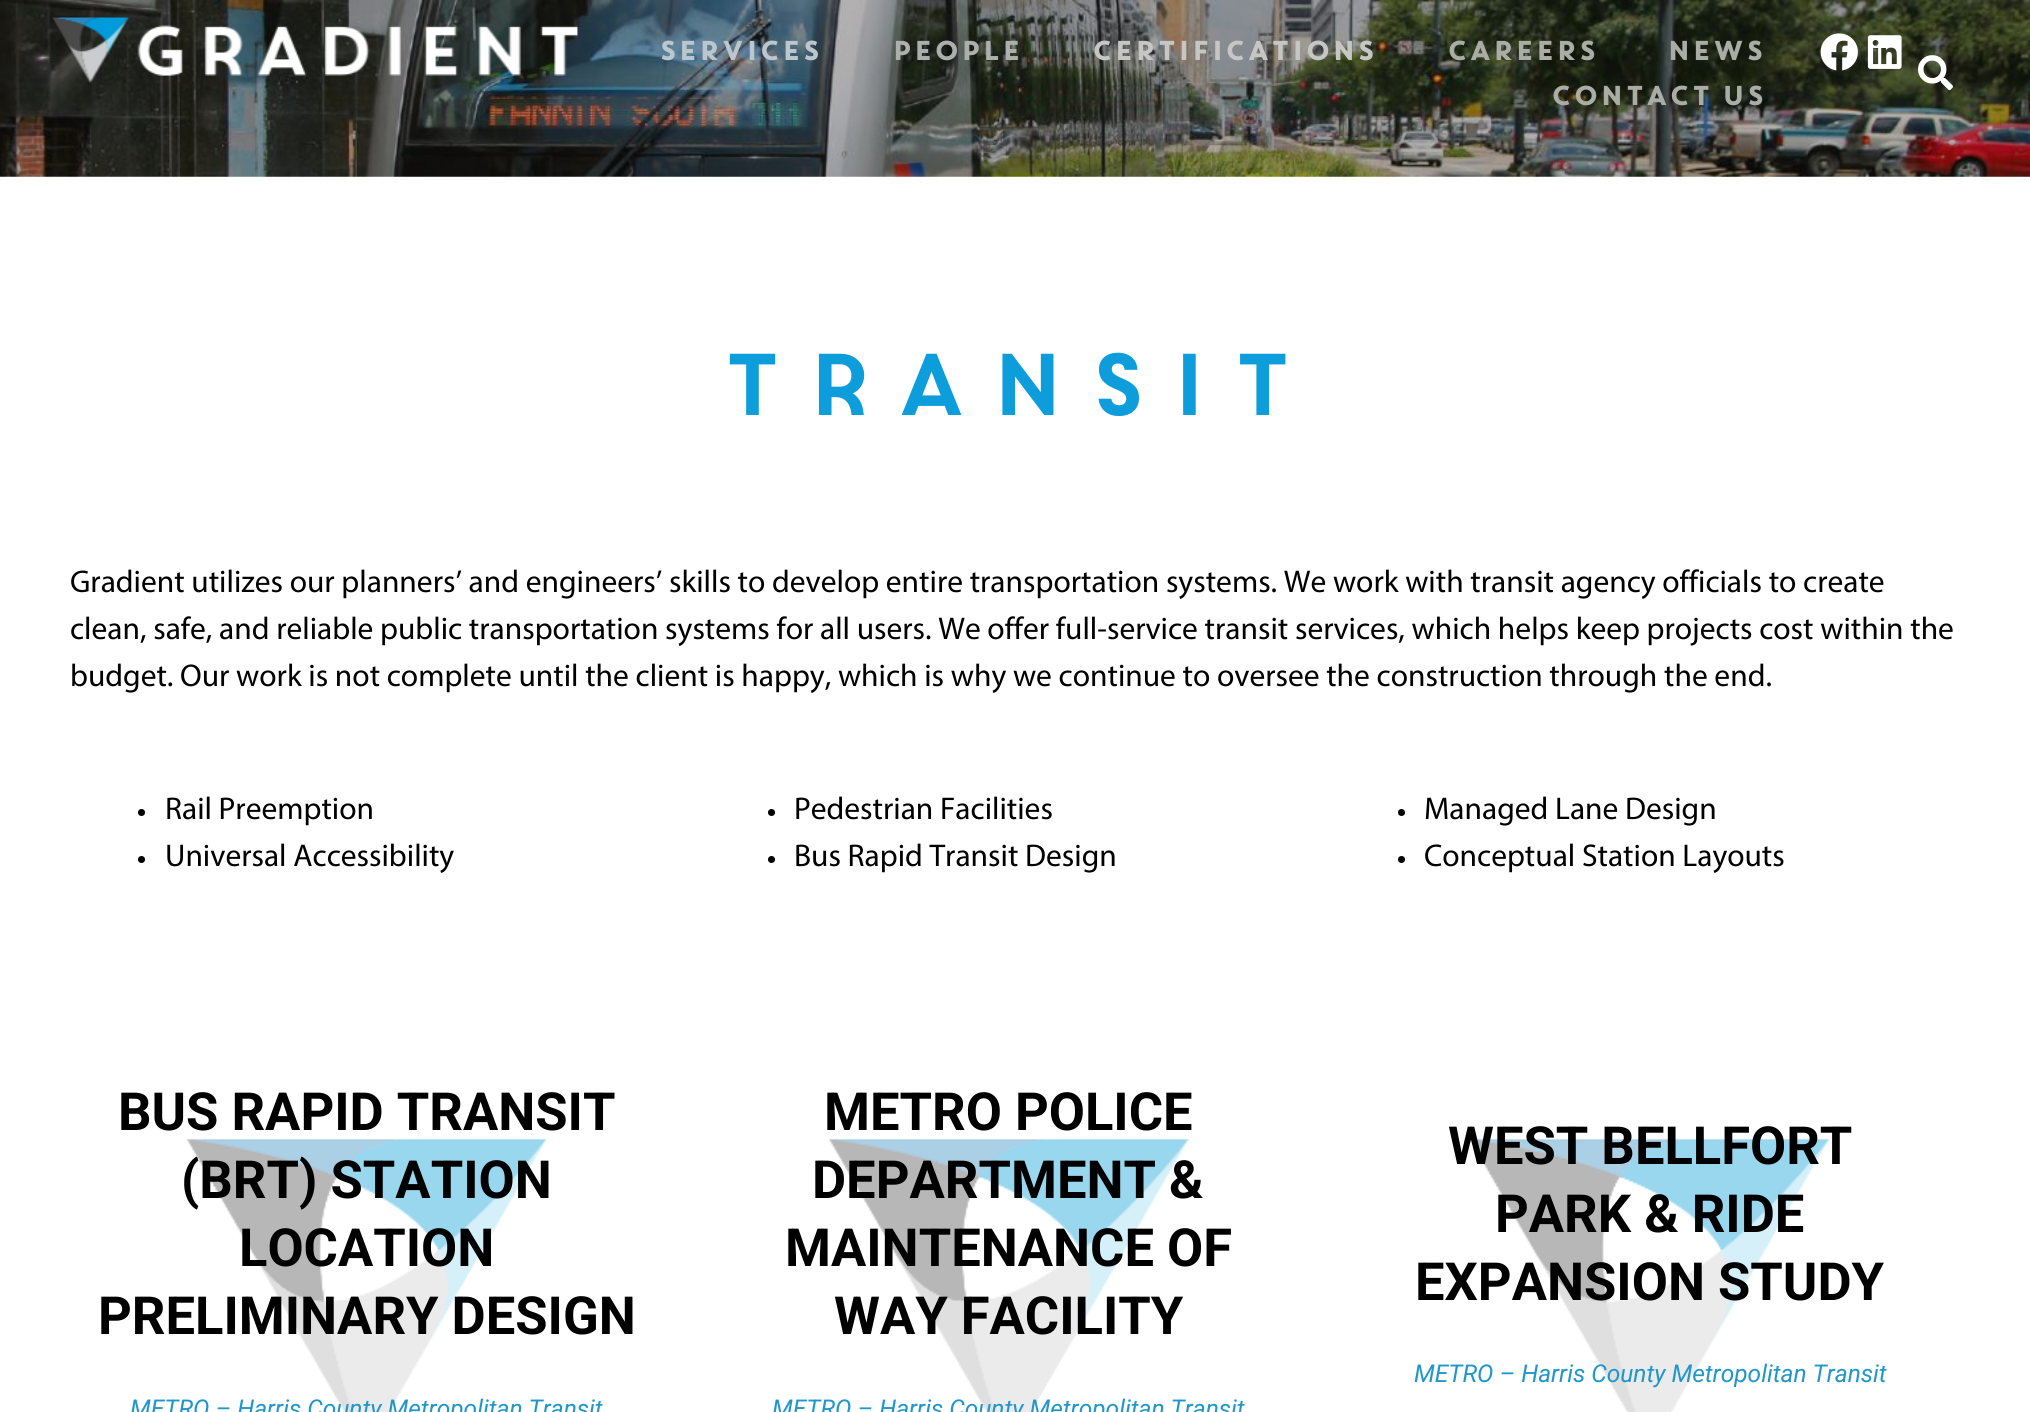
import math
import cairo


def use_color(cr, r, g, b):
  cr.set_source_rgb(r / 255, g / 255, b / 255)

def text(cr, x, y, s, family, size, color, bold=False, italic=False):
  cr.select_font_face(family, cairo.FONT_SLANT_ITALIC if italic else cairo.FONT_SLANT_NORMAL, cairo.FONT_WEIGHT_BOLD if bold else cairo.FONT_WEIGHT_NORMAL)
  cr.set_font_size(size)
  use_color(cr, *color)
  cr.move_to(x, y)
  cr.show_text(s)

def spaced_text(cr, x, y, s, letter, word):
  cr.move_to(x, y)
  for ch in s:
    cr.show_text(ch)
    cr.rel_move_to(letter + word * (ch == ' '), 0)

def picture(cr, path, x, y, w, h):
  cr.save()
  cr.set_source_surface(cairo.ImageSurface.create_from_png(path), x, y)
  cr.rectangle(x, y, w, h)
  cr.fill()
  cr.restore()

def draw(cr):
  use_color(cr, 255, 255, 255)
  cr.paint()
  picture(cr, "img_05.png", 0, 0, 2030, 177)
  picture(cr, "img_01.png", 52, 17, 526, 66)
  picture(cr, "img_02.png", 1820, 33, 38, 38)
  picture(cr, "img_03.png", 1867, 35, 35, 34)
  picture(cr, "img_04.png", 1918, 55, 35, 36)
  use_color(cr, 0, 0, 0)
  cr.arc(141.5, 812.5, 3.5, 0, 2 * math.pi)
  cr.fill()
  cr.arc(141.5, 859.5, 3.5, 0, 2 * math.pi)
  cr.fill()
  cr.arc(771.5, 812.5, 3.5, 0, 2 * math.pi)
  cr.fill()
  cr.arc(771.5, 859.5, 3.5, 0, 2 * math.pi)
  cr.fill()
  cr.arc(1401.5, 812.5, 3.5, 0, 2 * math.pi)
  cr.fill()
  cr.arc(1401.5, 859.5, 3.5, 0, 2 * math.pi)
  cr.fill()
  picture(cr, "img_06.png", 186, 1138, 361, 274)
  picture(cr, "img_07.png", 829, 1138, 360, 274)
  picture(cr, "img_08.png", 1469, 1138, 361, 274)
  text(cr, 658, 60, "SERVICES", "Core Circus", 26.25, (187, 198, 205), bold=True)
  text(cr, 891, 60, "PEOPLE", "Core Circus", 26.25, (173, 175, 172), bold=True)
  text(cr, 1091, 60, "CERTIFICATIONS", "Core Circus", 26.25, (198, 199, 196), bold=True)
  text(cr, 1446, 60, "CAREERS", "Core Circus", 26.25, (170, 173, 166), bold=True)
  text(cr, 1666, 60, "NEWS", "Core Circus", 26.25, (170, 173, 166), bold=True)
  text(cr, 1550, 105, "CONTACT US", "Core Circus", 26.25, (170, 173, 166), bold=True)
  cr.select_font_face("Core Circus")
  cr.set_font_size(87.5)
  use_color(cr, 13, 157, 219)
  spaced_text(cr, 718, 415, "Transit", 15.75, 0)
  text(cr, 70, 592, "Gradient utilizes our planners’ and engineers’ skills to develop entire transportation systems. We work with transit agency officials to create", "Myriad", 31.5, (0, 0, 0))
  text(cr, 70, 639, "clean, safe, and reliable public transportation systems for all users. We offer full-service transit services, which helps keep projects cost within the", "Myriad", 31.5, (0, 0, 0))
  text(cr, 70, 686, "budget. Our work is not complete until the client is happy, which is why we continue to oversee the construction through the end.", "Myriad", 31.5, (0, 0, 0))
  text(cr, 165, 819, "Rail Preemption", "Myriad", 31.5, (0, 0, 0))
  text(cr, 165, 866, "Universal Accessibility", "Myriad", 31.5, (0, 0, 0))
  text(cr, 794, 819, "Pedestrian Facilities", "Myriad", 31.5, (0, 0, 0))
  text(cr, 794, 866, "Bus Rapid Transit Design", "Myriad", 31.5, (0, 0, 0))
  text(cr, 1424, 819, "Managed Lane Design", "Myriad", 31.5, (0, 0, 0))
  text(cr, 1424, 866, "Conceptual Station Layouts", "Myriad", 31.5, (0, 0, 0))
  text(cr, 118, 1130, "BUS RAPID TRANSIT", "Roboto", 52.5, (0, 0, 0), bold=True)
  text(cr, 181, 1198, "(BRT) STATION", "Roboto", 52.5, (0, 0, 0), bold=True)
  text(cr, 239, 1266, "LOCATION", "Roboto", 52.5, (0, 0, 0), bold=True)
  text(cr, 98, 1334, "PRELIMINARY DESIGN", "Roboto", 52.5, (0, 0, 0), bold=True)
  text(cr, 130, 1417, "METRO – Harris County Metropolitan Transit", "Roboto", 24.5, (33, 150, 203), italic=True)
  text(cr, 824, 1130, "METRO POLICE", "Roboto", 52.5, (0, 0, 0), bold=True)
  text(cr, 812, 1198, "DEPARTMENT &", "Roboto", 52.5, (0, 0, 0), bold=True)
  text(cr, 785, 1266, "MAINTENANCE OF", "Roboto", 52.5, (0, 0, 0), bold=True)
  text(cr, 834, 1334, "WAY FACILITY", "Roboto", 52.5, (0, 0, 0), bold=True)
  text(cr, 772, 1417, "METRO – Harris County Metropolitan Transit", "Roboto", 24.5, (33, 150, 203), italic=True)
  text(cr, 1448, 1164, "WEST BELLFORT", "Roboto", 52.5, (0, 0, 0), bold=True)
  text(cr, 1495, 1232, "PARK & RIDE", "Roboto", 52.5, (0, 0, 0), bold=True)
  text(cr, 1415, 1300, "EXPANSION STUDY", "Roboto", 52.5, (0, 0, 0), bold=True)
  text(cr, 1414, 1382, "METRO – Harris County Metropolitan Transit", "Roboto", 24.5, (33, 150, 203), italic=True)


surface = cairo.ImageSurface(cairo.FORMAT_RGB24, 2030, 1412)
cr = cairo.Context(surface)
options = cairo.FontOptions()
options.set_hint_metrics(cairo.HINT_METRICS_OFF)
options.set_hint_style(cairo.HINT_STYLE_NONE)
cr.set_font_options(options)
cr.set_miter_limit(4)
draw(cr)
surface.write_to_png("out.png")
